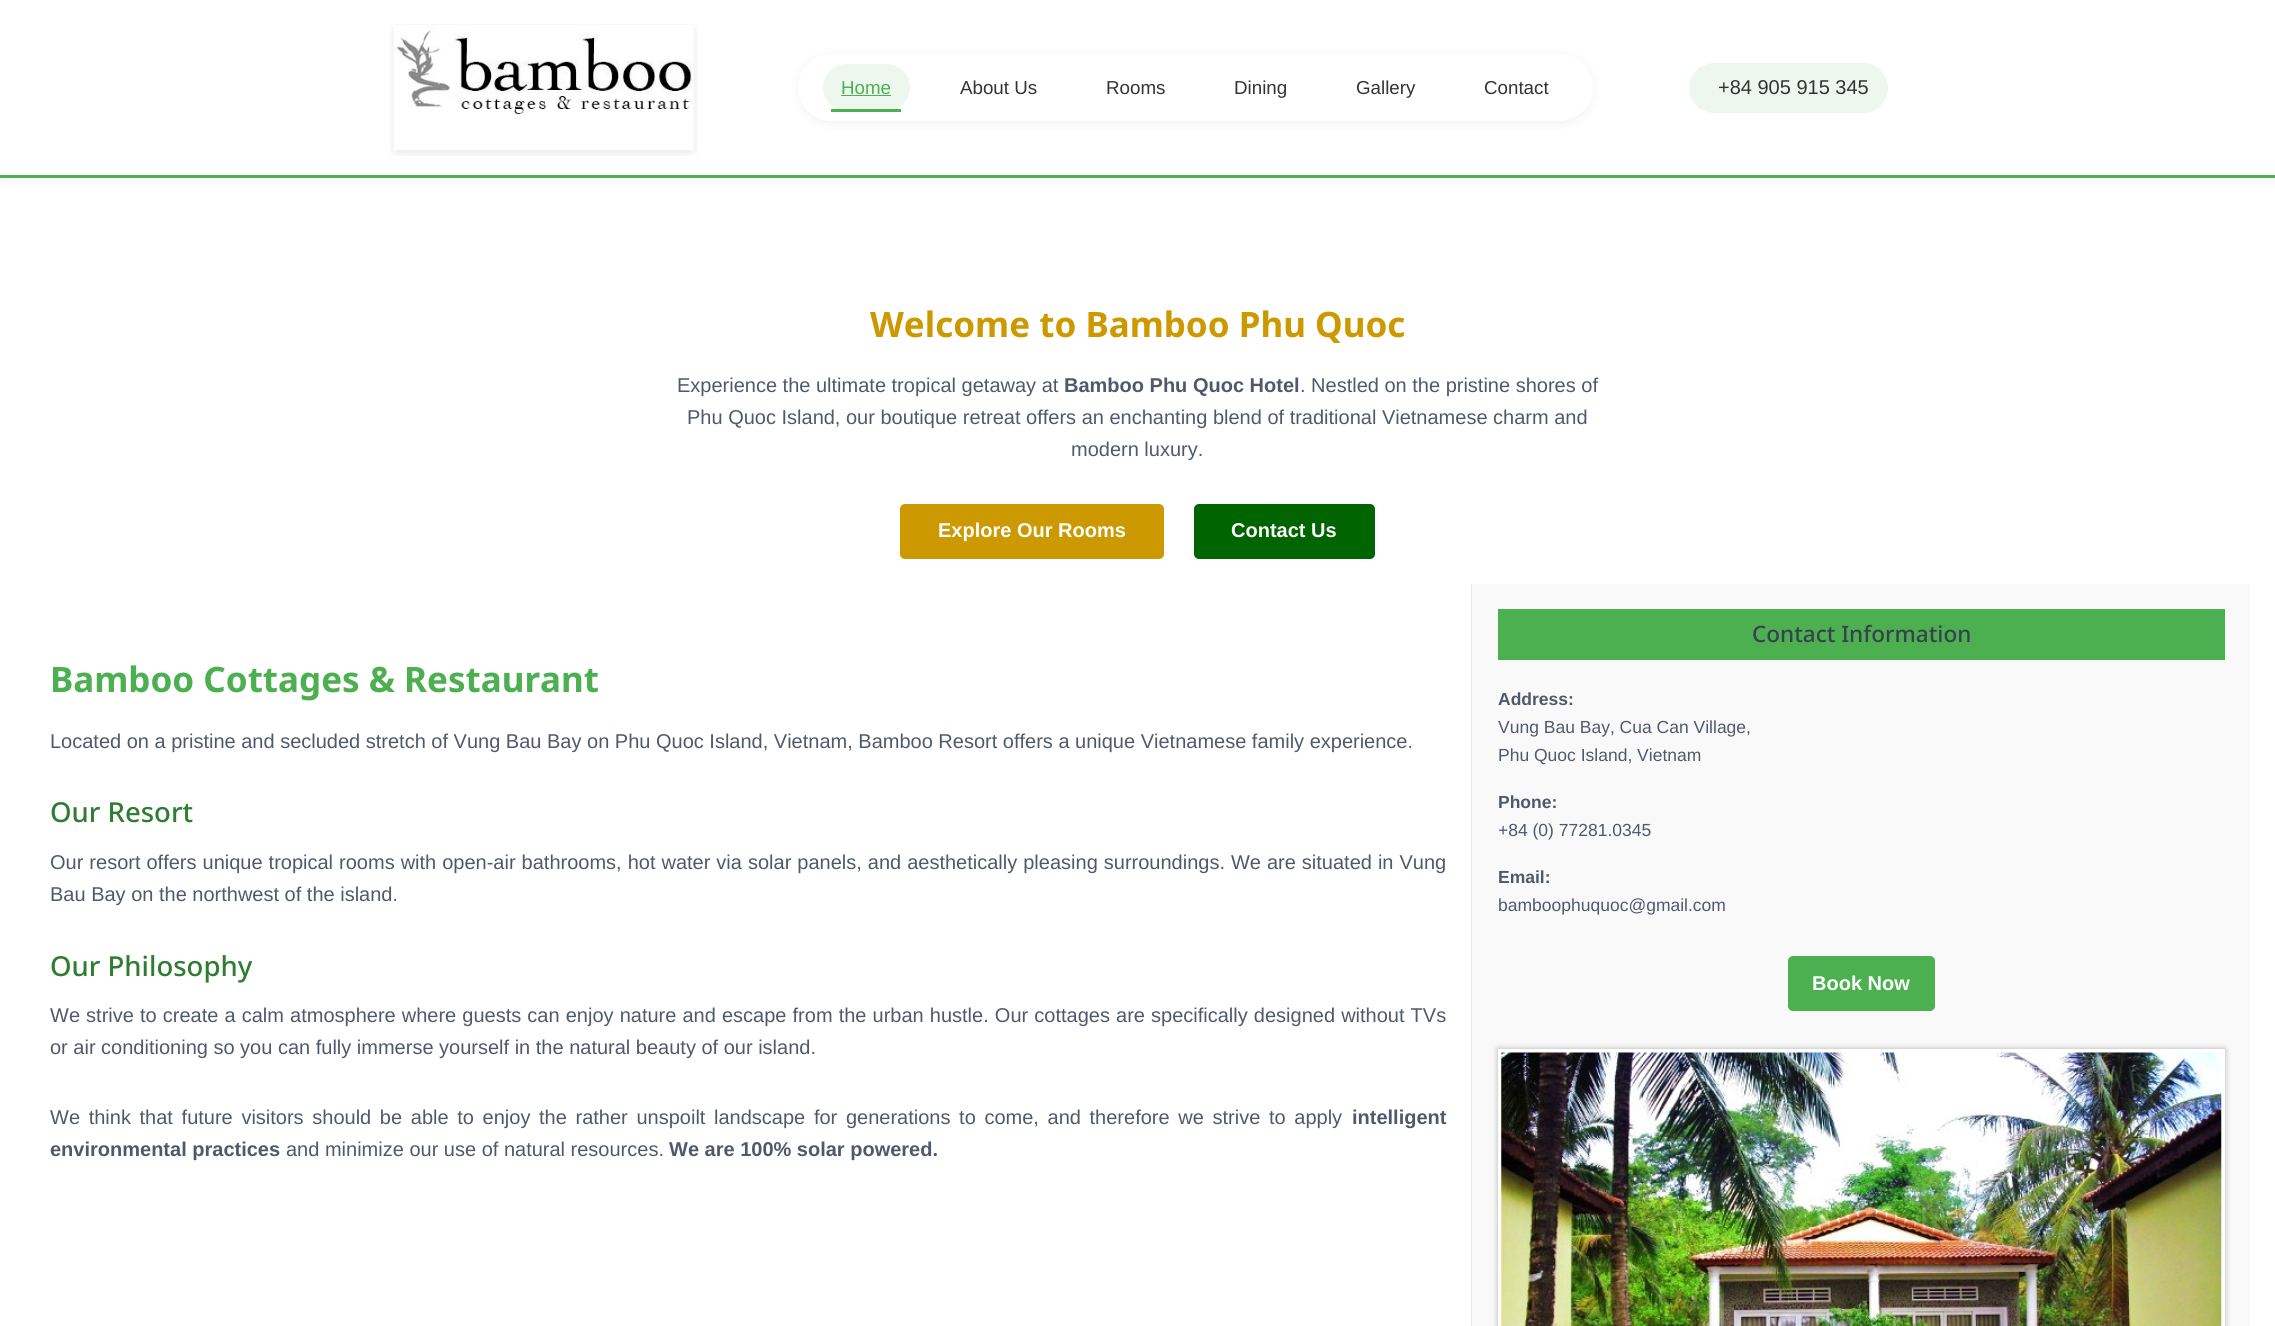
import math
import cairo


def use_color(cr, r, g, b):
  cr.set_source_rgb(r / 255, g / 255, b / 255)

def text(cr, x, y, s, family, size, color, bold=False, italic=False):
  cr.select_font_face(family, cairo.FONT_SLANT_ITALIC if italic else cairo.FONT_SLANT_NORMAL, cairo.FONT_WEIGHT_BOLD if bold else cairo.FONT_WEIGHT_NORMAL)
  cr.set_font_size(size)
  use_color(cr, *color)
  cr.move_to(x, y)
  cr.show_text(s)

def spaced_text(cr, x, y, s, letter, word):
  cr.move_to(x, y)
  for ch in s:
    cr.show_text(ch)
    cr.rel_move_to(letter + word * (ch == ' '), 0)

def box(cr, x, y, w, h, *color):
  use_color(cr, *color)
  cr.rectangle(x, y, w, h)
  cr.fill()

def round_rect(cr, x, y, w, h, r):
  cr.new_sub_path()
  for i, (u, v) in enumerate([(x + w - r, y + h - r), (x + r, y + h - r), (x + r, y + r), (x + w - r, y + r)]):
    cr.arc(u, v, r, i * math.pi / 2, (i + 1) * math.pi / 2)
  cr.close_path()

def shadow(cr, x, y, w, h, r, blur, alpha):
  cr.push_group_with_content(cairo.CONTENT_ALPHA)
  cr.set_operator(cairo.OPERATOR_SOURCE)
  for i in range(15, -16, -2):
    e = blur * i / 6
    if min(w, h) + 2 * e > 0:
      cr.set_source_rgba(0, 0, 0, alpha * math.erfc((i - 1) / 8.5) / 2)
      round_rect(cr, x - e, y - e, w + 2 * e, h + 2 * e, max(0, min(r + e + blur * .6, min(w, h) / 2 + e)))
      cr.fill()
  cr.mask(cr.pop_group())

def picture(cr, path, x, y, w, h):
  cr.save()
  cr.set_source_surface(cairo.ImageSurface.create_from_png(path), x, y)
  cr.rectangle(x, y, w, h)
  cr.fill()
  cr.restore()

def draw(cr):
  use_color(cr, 255, 255, 255)
  cr.paint()
  use_color(cr, 0, 0, 0)
  shadow(cr, 0, 3, 2275, 177, 0, 6, 0.05)
  box(cr, 0, 0, 2275, 175, 255, 255, 255)
  box(cr, 0, 175, 2275, 3, 76, 175, 80)
  picture(cr, "img_01.png", 390, 24, 308, 132)
  use_color(cr, 0, 0, 0)
  shadow(cr, 798, 56, 795, 68, 34, 5, 0.05)
  use_color(cr, 255, 255, 255)
  round_rect(cr, 798, 54, 795, 67, 33.5)
  cr.fill()
  use_color(cr, 237, 247, 238)
  round_rect(cr, 823, 64, 87, 47, 23.5)
  cr.fill()
  box(cr, 841, 95, 50, 1, 76, 175, 80)
  box(cr, 831, 109, 70, 3, 76, 175, 80)
  use_color(cr, 237, 247, 238)
  round_rect(cr, 1689, 63, 199, 50, 25)
  cr.fill()
  use_color(cr, 204, 153, 0)
  round_rect(cr, 900, 504, 264, 55, 5)
  cr.fill()
  use_color(cr, 0, 100, 0)
  round_rect(cr, 1194, 504, 181, 55, 5)
  cr.fill()
  box(cr, 1472, 584, 778, 742, 249, 249, 249)
  box(cr, 1471, 584, 1, 742, 234, 234, 234)
  box(cr, 1498, 609, 727, 51, 76, 175, 80)
  round_rect(cr, 1788, 956, 147, 55, 5)
  cr.fill()
  use_color(cr, 0, 0, 0)
  shadow(cr, 1498, 1049, 727, 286, 0, 3, 0.3)
  cr.rectangle(1500, 1051, 723, 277)
  use_color(cr, 255, 255, 255)
  cr.set_line_width(4)
  cr.stroke()
  picture(cr, "img_02.png", 1501, 1052, 721, 274)
  text(cr, 841, 94, "Home", "Liberation Sans", 18.75, (76, 175, 80))
  text(cr, 960, 94, "About Us", "Liberation Sans", 18.75, (51, 51, 51))
  text(cr, 1106, 94, "Rooms", "Liberation Sans", 18.75, (51, 51, 51))
  text(cr, 1234, 94, "Dining", "Liberation Sans", 18.75, (51, 51, 51))
  text(cr, 1356, 94, "Gallery", "Liberation Sans", 18.75, (51, 51, 51))
  text(cr, 1484, 94, "Contact", "Liberation Sans", 18.75, (51, 51, 51))
  text(cr, 1718, 94, "+84 905 915 345", "Liberation Sans", 20, (51, 51, 51))
  text(cr, 870, 337, "Welcome to Bamboo Phu Quoc", "Noto Sans", 35, (204, 153, 0), bold=True)
  text(cr, 677, 392, "Experience the ultimate tropical getaway at", "Liberation Sans", 20, (80, 89, 108))
  text(cr, 1064, 392, "Bamboo Phu Quoc Hotel", "Liberation Sans", 20, (80, 89, 108), bold=True)
  text(cr, 1300, 392, ". Nestled on the pristine shores of", "Liberation Sans", 20, (80, 89, 108))
  text(cr, 687, 424, "Phu Quoc Island, our boutique retreat offers an enchanting blend of traditional Vietnamese charm and", "Liberation Sans", 20, (80, 89, 108))
  text(cr, 1071, 456, "modern luxury.", "Liberation Sans", 20, (80, 89, 108))
  text(cr, 938, 537, "Explore Our Rooms", "Liberation Sans", 20, (255, 255, 255), bold=True)
  text(cr, 1231, 537, "Contact Us", "Liberation Sans", 20, (255, 255, 255), bold=True)
  text(cr, 50, 692, "Bamboo Cottages & Restaurant", "Noto Sans", 35, (76, 175, 80), bold=True)
  text(cr, 50, 748, "Located on a pristine and secluded stretch of Vung Bau Bay on Phu Quoc Island, Vietnam, Bamboo Resort offers a unique Vietnamese family experience.", "Liberation Sans", 20, (80, 89, 108))
  text(cr, 50, 822, "Our Resort", "Noto Sans Medium", 27.5, (46, 125, 50))
  cr.select_font_face("Liberation Sans")
  cr.set_font_size(20)
  use_color(cr, 80, 89, 108)
  spaced_text(cr, 50, 869, "Our resort offers unique tropical rooms with open-air bathrooms, hot water via solar panels, and aesthetically pleasing surroundings. We are situated in Vung", 0, 0.45)
  text(cr, 50, 901, "Bau Bay on the northwest of the island.", "Liberation Sans", 20, (80, 89, 108))
  text(cr, 50, 976, "Our Philosophy", "Noto Sans Medium", 27.5, (46, 125, 50))
  cr.select_font_face("Liberation Sans")
  cr.set_font_size(20)
  use_color(cr, 80, 89, 108)
  spaced_text(cr, 50, 1022, "We strive to create a calm atmosphere where guests can enjoy nature and escape from the urban hustle. Our cottages are specifically designed without TVs", 0, 0.55)
  text(cr, 50, 1054, "or air conditioning so you can fully immerse yourself in the natural beauty of our island.", "Liberation Sans", 20, (80, 89, 108))
  spaced_text(cr, 50, 1124, "We think that future visitors should be able to enjoy the rather unspoilt landscape for generations to come, and therefore we strive to apply", 0, 3.1)
  text(cr, 1352, 1124, "intelligent", "Liberation Sans", 20, (80, 89, 108), bold=True)
  text(cr, 50, 1156, "environmental practices", "Liberation Sans", 20, (80, 89, 108), bold=True)
  text(cr, 286, 1156, "and minimize our use of natural resources.", "Liberation Sans", 20, (80, 89, 108))
  text(cr, 669, 1156, "We are 100% solar powered.", "Liberation Sans", 20, (80, 89, 108), bold=True)
  text(cr, 1752, 642, "Contact Information", "Noto Sans Medium", 22.5, (58, 65, 78))
  text(cr, 1498, 705, "Address:", "Liberation Sans", 17.5, (80, 89, 108), bold=True)
  text(cr, 1498, 733, "Vung Bau Bay, Cua Can Village,", "Liberation Sans", 17.5, (80, 89, 108))
  text(cr, 1498, 761, "Phu Quoc Island, Vietnam", "Liberation Sans", 17.5, (80, 89, 108))
  text(cr, 1498, 808, "Phone:", "Liberation Sans", 17.5, (80, 89, 108), bold=True)
  text(cr, 1498, 836, "+84 (0) 77281.0345", "Liberation Sans", 17.5, (80, 89, 108))
  text(cr, 1498, 883, "Email:", "Liberation Sans", 17.5, (80, 89, 108), bold=True)
  text(cr, 1498, 911, "bamboophuquoc@gmail.com", "Liberation Sans", 17.5, (80, 89, 108))
  text(cr, 1812, 990, "Book Now", "Liberation Sans", 20, (255, 255, 255), bold=True)


surface = cairo.ImageSurface(cairo.FORMAT_RGB24, 2275, 1326)
cr = cairo.Context(surface)
options = cairo.FontOptions()
options.set_hint_metrics(cairo.HINT_METRICS_OFF)
options.set_hint_style(cairo.HINT_STYLE_NONE)
cr.set_font_options(options)
cr.set_miter_limit(4)
draw(cr)
surface.write_to_png("out.png")
